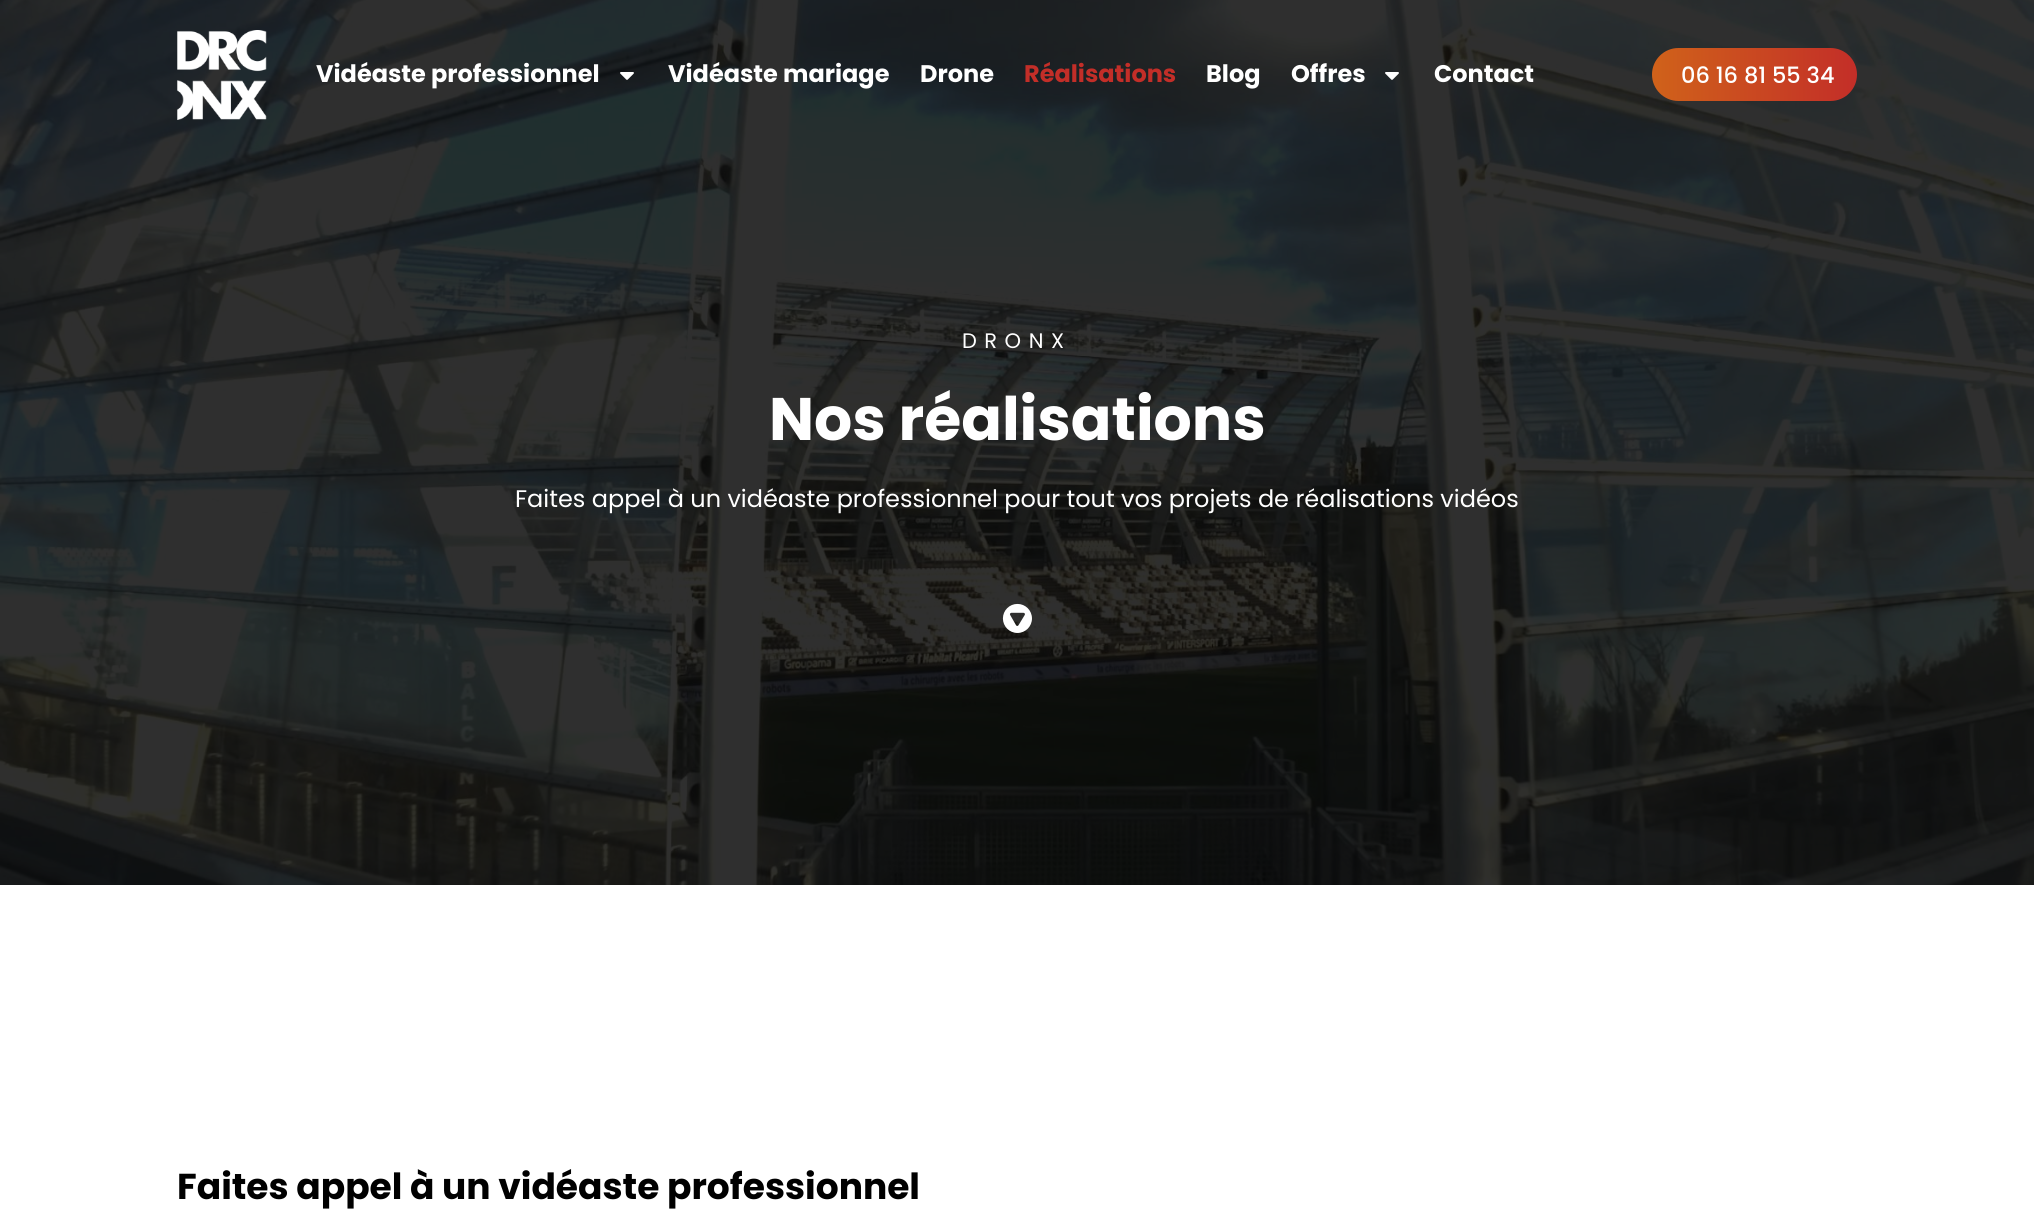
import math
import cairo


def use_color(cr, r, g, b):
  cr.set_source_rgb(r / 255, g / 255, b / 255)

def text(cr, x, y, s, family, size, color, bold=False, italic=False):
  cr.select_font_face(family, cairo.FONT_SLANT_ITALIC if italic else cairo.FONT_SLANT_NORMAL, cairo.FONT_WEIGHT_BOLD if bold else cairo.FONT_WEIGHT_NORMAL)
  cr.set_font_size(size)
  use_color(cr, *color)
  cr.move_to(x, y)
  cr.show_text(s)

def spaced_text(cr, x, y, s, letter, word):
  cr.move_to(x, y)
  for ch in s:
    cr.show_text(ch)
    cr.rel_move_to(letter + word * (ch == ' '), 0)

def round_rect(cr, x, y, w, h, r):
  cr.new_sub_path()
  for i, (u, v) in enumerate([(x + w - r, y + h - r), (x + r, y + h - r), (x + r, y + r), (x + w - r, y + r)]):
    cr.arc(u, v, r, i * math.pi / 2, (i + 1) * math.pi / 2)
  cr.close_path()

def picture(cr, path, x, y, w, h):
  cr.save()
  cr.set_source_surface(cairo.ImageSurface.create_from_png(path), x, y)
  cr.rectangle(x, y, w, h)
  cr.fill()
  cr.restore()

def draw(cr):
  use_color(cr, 255, 255, 255)
  cr.paint()
  picture(cr, "img_04.png", 0, 0, 2034, 885)
  picture(cr, "img_01.png", 177, 30, 90, 90)
  picture(cr, "img_02.png", 620, 72, 14, 8)
  picture(cr, "img_03.png", 1385, 72, 14, 8)
  gradient = cairo.LinearGradient(1652, 74, 1857, 74)
  gradient.add_color_stop_rgba(0, 0.816, 0.384, 0.102, 1)
  gradient.add_color_stop_rgba(1, 0.765, 0.18, 0.157, 1)
  cr.set_source(gradient)
  round_rect(cr, 1652, 48, 205, 53, 26.5)
  cr.fill()
  picture(cr, "img_05.png", 1002, 603, 30, 30)
  text(cr, 316, 82, "Vidéaste professionnel", "Poppins", 24, (255, 255, 255), bold=True)
  text(cr, 668, 82, "Vidéaste mariage", "Poppins", 24, (255, 255, 255), bold=True)
  text(cr, 920, 82, "Drone", "Poppins", 24, (255, 255, 255), bold=True)
  text(cr, 1024, 82, "Réalisations", "Poppins", 24, (195, 46, 40), bold=True)
  text(cr, 1206, 82, "Blog", "Poppins", 24, (255, 255, 255), bold=True)
  text(cr, 1291, 82, "Offres", "Poppins", 24, (255, 255, 255), bold=True)
  text(cr, 1434, 82, "Contact", "Poppins", 24, (255, 255, 255), bold=True)
  text(cr, 1681, 83, "06 16 81 55 34", "Poppins Medium", 22.5, (255, 255, 255))
  cr.select_font_face("Poppins")
  cr.set_font_size(21)
  spaced_text(cr, 962, 348, "DRONX", 7.5, 0)
  text(cr, 769, 440, "Nos réalisations", "Poppins", 60, (255, 255, 255), bold=True)
  text(cr, 515, 507, "Faites appel à un vidéaste professionnel pour tout vos projets de réalisations vidéos", "Poppins", 24, (255, 255, 255))
  text(cr, 177, 1199, "Faites appel à un vidéaste professionnel", "Poppins", 36, (0, 0, 0), bold=True)


surface = cairo.ImageSurface(cairo.FORMAT_RGB24, 2034, 1226)
cr = cairo.Context(surface)
options = cairo.FontOptions()
options.set_hint_metrics(cairo.HINT_METRICS_OFF)
options.set_hint_style(cairo.HINT_STYLE_NONE)
cr.set_font_options(options)
cr.set_miter_limit(4)
draw(cr)
surface.write_to_png("out.png")
